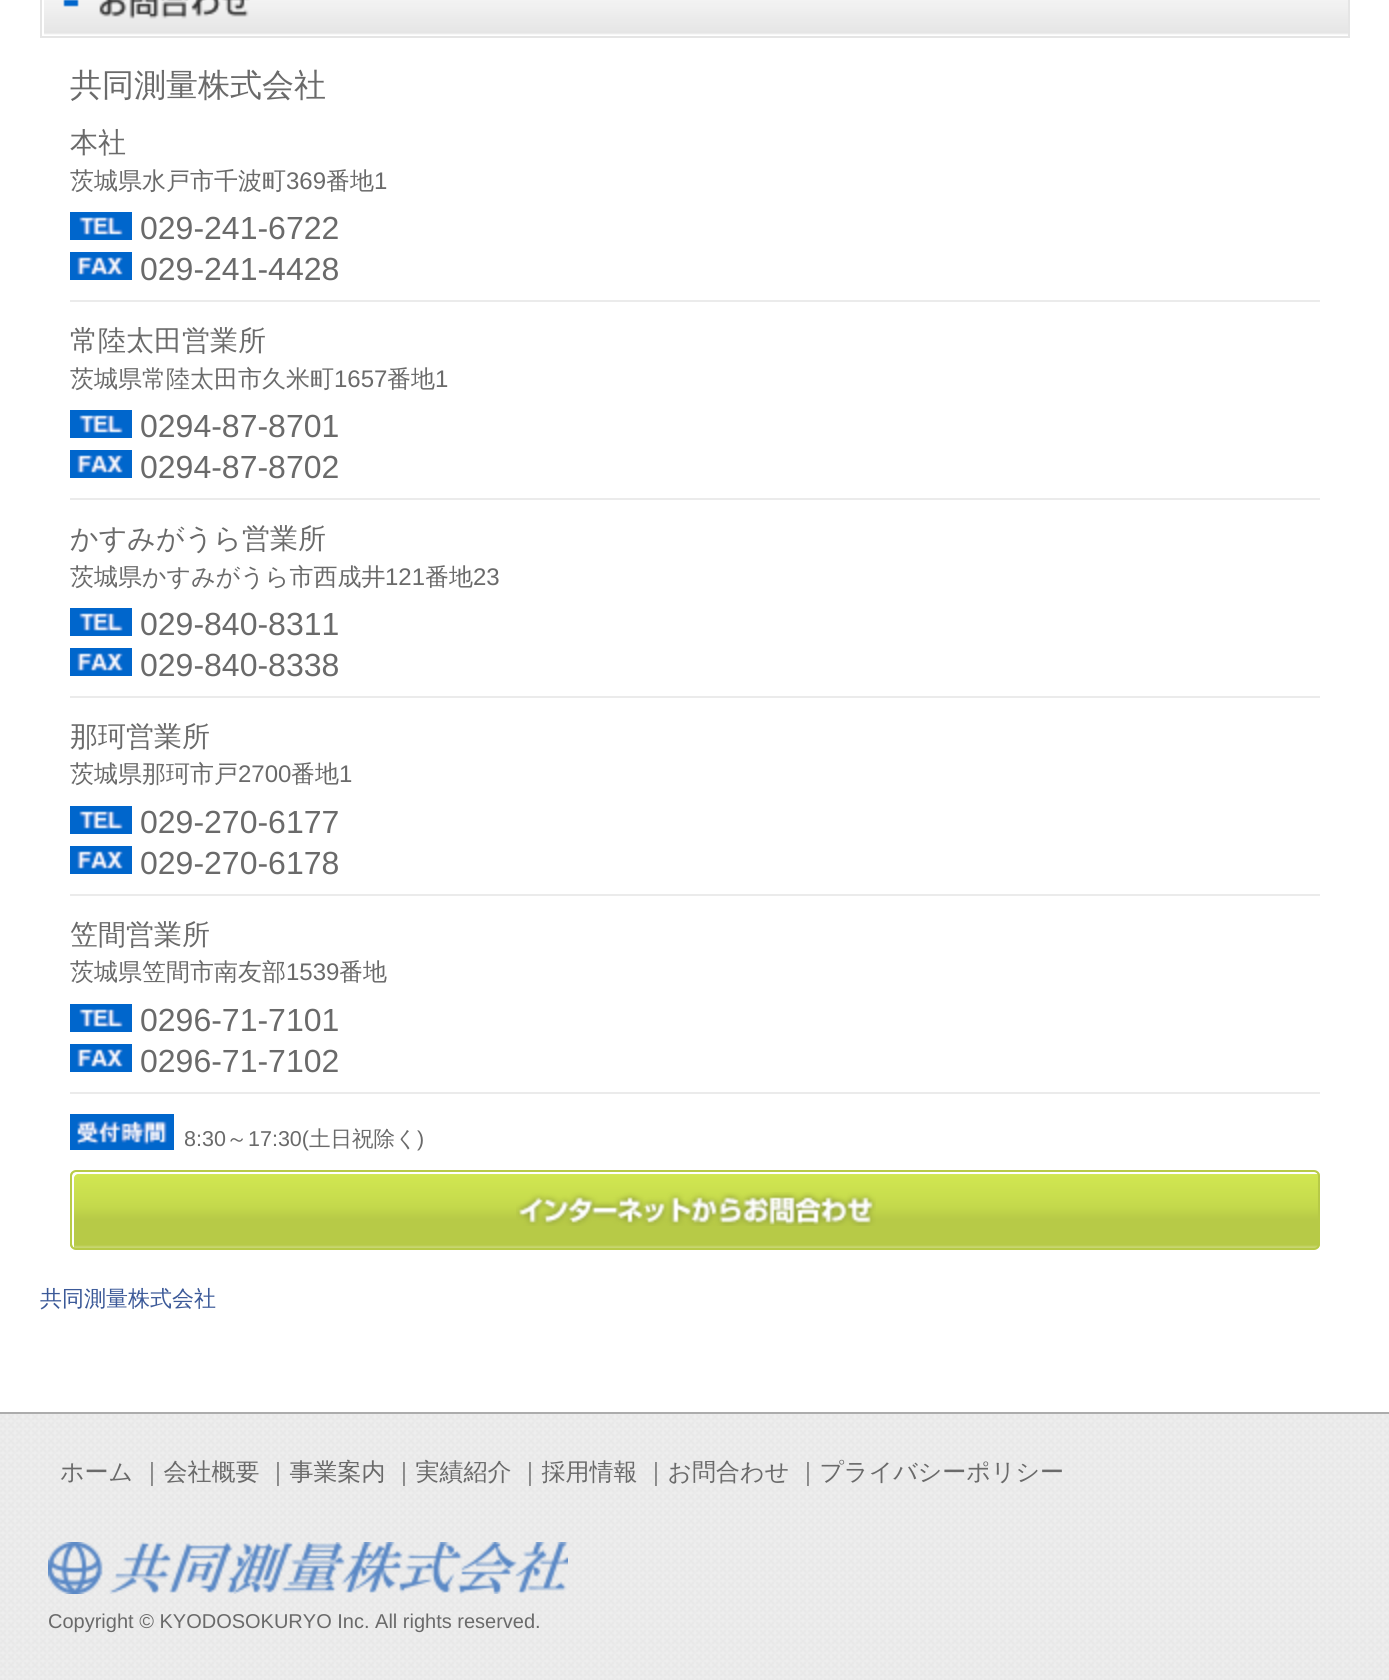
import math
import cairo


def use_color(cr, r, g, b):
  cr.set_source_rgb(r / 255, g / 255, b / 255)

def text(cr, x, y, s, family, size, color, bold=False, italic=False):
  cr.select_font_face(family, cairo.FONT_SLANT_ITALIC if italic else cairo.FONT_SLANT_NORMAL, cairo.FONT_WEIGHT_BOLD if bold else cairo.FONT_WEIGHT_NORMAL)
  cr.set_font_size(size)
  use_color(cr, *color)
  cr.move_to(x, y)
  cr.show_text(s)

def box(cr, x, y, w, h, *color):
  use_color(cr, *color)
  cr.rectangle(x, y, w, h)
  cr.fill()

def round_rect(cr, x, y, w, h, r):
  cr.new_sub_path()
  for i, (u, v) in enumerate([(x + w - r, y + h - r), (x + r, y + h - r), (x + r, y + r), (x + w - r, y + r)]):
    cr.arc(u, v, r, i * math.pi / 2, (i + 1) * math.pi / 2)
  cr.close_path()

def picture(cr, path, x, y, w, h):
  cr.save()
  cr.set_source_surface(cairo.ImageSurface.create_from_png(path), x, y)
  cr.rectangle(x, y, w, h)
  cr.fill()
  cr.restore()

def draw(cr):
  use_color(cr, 255, 255, 255)
  cr.paint()
  picture(cr, "img_01.png", 44, 0, 1304, 35)
  cr.rectangle(41, -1, 1308, 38)
  use_color(cr, 229, 229, 229)
  cr.stroke()
  picture(cr, "img_02.png", 63, 0, 187, 19)
  box(cr, 70, 300, 1250, 2, 235, 235, 235)
  picture(cr, "img_03.png", 70, 212, 62, 28)
  picture(cr, "img_04.png", 70, 252, 62, 28)
  box(cr, 70, 498, 1250, 2, 235, 235, 235)
  picture(cr, "img_03.png", 70, 410, 62, 28)
  picture(cr, "img_04.png", 70, 450, 62, 28)
  box(cr, 70, 696, 1250, 2, 235, 235, 235)
  picture(cr, "img_03.png", 70, 608, 62, 28)
  picture(cr, "img_04.png", 70, 648, 62, 28)
  box(cr, 70, 894, 1250, 2, 235, 235, 235)
  picture(cr, "img_03.png", 70, 806, 62, 28)
  picture(cr, "img_04.png", 70, 846, 62, 28)
  box(cr, 70, 1092, 1250, 2, 235, 235, 235)
  picture(cr, "img_03.png", 70, 1004, 62, 28)
  picture(cr, "img_04.png", 70, 1044, 62, 28)
  picture(cr, "img_05.png", 70, 1114, 104, 36)
  picture(cr, "img_06.png", 70, 1172, 1250, 76)
  use_color(cr, 255, 255, 255)
  cr.new_path()
  cr.move_to(78, 1174)
  cr.line_to(1316, 1174)
  cr.line_to(1318, 1174)
  cr.curve_to(1317, 1173, 1316, 1172, 1314, 1172)
  cr.line_to(76, 1172)
  cr.curve_to(74, 1172, 72, 1174, 72, 1176)
  cr.line_to(72, 1244)
  cr.curve_to(72, 1246, 73, 1247, 74, 1248)
  cr.line_to(74, 1246)
  cr.line_to(74, 1178)
  cr.curve_to(74, 1176, 76, 1174, 78, 1174)
  cr.close_path()
  cr.fill()
  round_rect(cr, 71, 1171, 1248, 78, 5)
  use_color(cr, 183, 202, 71)
  cr.stroke()
  picture(cr, "img_07.png", 516, 1192, 360, 34)
  picture(cr, "img_08.png", 0, 1414, 1389, 266)
  box(cr, 0, 1412, 1389, 2, 172, 172, 172)
  picture(cr, "img_09.png", 48, 1542, 520, 52)
  text(cr, 70, 96, "共同測量株式会社", "WenQuanYi Zen Hei Medium", 32, (106, 106, 106))
  text(cr, 70, 152, "本社", "WenQuanYi Zen Hei Medium", 28, (106, 106, 106))
  text(cr, 70, 189, "茨城県水戸市千波町", "WenQuanYi Zen Hei Medium", 24, (106, 106, 106))
  text(cr, 286, 189, "369", "Liberation Sans", 24, (106, 106, 106))
  text(cr, 326, 189, "番地", "WenQuanYi Zen Hei Medium", 24, (106, 106, 106))
  text(cr, 374, 189, "1", "Liberation Sans", 24, (106, 106, 106))
  text(cr, 140, 239, "029-241-6722", "Liberation Sans", 32, (106, 106, 106))
  text(cr, 140, 280, "029-241-4428", "Liberation Sans", 32, (106, 106, 106))
  text(cr, 70, 350, "常陸太田営業所", "WenQuanYi Zen Hei Medium", 28, (106, 106, 106))
  text(cr, 70, 387, "茨城県常陸太田市久米町", "WenQuanYi Zen Hei Medium", 24, (106, 106, 106))
  text(cr, 334, 387, "1657", "Liberation Sans", 24, (106, 106, 106))
  text(cr, 387, 387, "番地", "WenQuanYi Zen Hei Medium", 24, (106, 106, 106))
  text(cr, 435, 387, "1", "Liberation Sans", 24, (106, 106, 106))
  text(cr, 140, 437, "0294-87-8701", "Liberation Sans", 32, (106, 106, 106))
  text(cr, 140, 478, "0294-87-8702", "Liberation Sans", 32, (106, 106, 106))
  text(cr, 70, 548, "かすみがうら営業所", "WenQuanYi Zen Hei Medium", 28, (106, 106, 106))
  text(cr, 70, 585, "茨城県かすみがうら市西成井", "WenQuanYi Zen Hei Medium", 24, (106, 106, 106))
  text(cr, 385, 585, "121", "Liberation Sans", 24, (106, 106, 106))
  text(cr, 425, 585, "番地", "WenQuanYi Zen Hei Medium", 24, (106, 106, 106))
  text(cr, 473, 585, "23", "Liberation Sans", 24, (106, 106, 106))
  text(cr, 140, 635, "029-840-8311", "Liberation Sans", 32, (106, 106, 106))
  text(cr, 140, 676, "029-840-8338", "Liberation Sans", 32, (106, 106, 106))
  text(cr, 70, 746, "那珂営業所", "WenQuanYi Zen Hei Medium", 28, (106, 106, 106))
  text(cr, 70, 782, "茨城県那珂市戸", "WenQuanYi Zen Hei Medium", 24, (106, 106, 106))
  text(cr, 238, 782, "2700", "Liberation Sans", 24, (106, 106, 106))
  text(cr, 291, 782, "番地", "WenQuanYi Zen Hei Medium", 24, (106, 106, 106))
  text(cr, 339, 782, "1", "Liberation Sans", 24, (106, 106, 106))
  text(cr, 140, 833, "029-270-6177", "Liberation Sans", 32, (106, 106, 106))
  text(cr, 140, 874, "029-270-6178", "Liberation Sans", 32, (106, 106, 106))
  text(cr, 70, 944, "笠間営業所", "WenQuanYi Zen Hei Medium", 28, (106, 106, 106))
  text(cr, 70, 980, "茨城県笠間市南友部", "WenQuanYi Zen Hei Medium", 24, (106, 106, 106))
  text(cr, 286, 980, "1539", "Liberation Sans", 24, (106, 106, 106))
  text(cr, 339, 980, "番地", "WenQuanYi Zen Hei Medium", 24, (106, 106, 106))
  text(cr, 140, 1031, "0296-71-7101", "Liberation Sans", 32, (106, 106, 106))
  text(cr, 140, 1072, "0296-71-7102", "Liberation Sans", 32, (106, 106, 106))
  text(cr, 184, 1146, "8:30", "Liberation Sans", 21.5, (106, 106, 106))
  text(cr, 226, 1146, "～", "WenQuanYi Zen Hei Medium", 21.5, (106, 106, 106))
  text(cr, 248, 1146, "17:30(", "Liberation Sans", 21.5, (106, 106, 106))
  text(cr, 309, 1146, "土日祝除く", "WenQuanYi Zen Hei Medium", 21.5, (106, 106, 106))
  text(cr, 417, 1146, ")", "Liberation Sans", 21.5, (106, 106, 106))
  text(cr, 40, 1306, "共同測量株式会社", "WenQuanYi Zen Hei Medium", 22, (59, 89, 152))
  text(cr, 60, 1480, "ホーム", "WenQuanYi Zen Hei Medium", 24, (106, 106, 106))
  text(cr, 140, 1480, "｜会社概要", "WenQuanYi Zen Hei Medium", 24, (106, 106, 106))
  text(cr, 266, 1480, "｜事業案内", "WenQuanYi Zen Hei Medium", 24, (106, 106, 106))
  text(cr, 392, 1480, "｜実績紹介", "WenQuanYi Zen Hei Medium", 24, (106, 106, 106))
  text(cr, 518, 1480, "｜採用情報", "WenQuanYi Zen Hei Medium", 24, (106, 106, 106))
  text(cr, 644, 1480, "｜お問合わせ", "WenQuanYi Zen Hei Medium", 24, (106, 106, 106))
  text(cr, 796, 1480, "｜プライバシーポリシー", "WenQuanYi Zen Hei Medium", 24, (106, 106, 106))
  text(cr, 48, 1628, "Copyright © KYODOSOKURYO Inc. All rights reserved.", "Liberation Sans", 20, (106, 106, 106))


surface = cairo.ImageSurface(cairo.FORMAT_RGB24, 1389, 1680)
cr = cairo.Context(surface)
options = cairo.FontOptions()
options.set_hint_metrics(cairo.HINT_METRICS_OFF)
options.set_hint_style(cairo.HINT_STYLE_NONE)
cr.set_font_options(options)
cr.set_miter_limit(4)
draw(cr)
surface.write_to_png("out.png")
